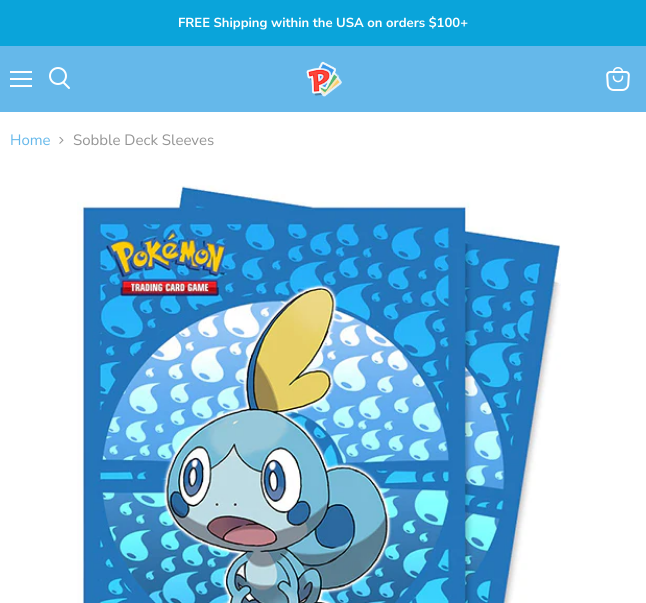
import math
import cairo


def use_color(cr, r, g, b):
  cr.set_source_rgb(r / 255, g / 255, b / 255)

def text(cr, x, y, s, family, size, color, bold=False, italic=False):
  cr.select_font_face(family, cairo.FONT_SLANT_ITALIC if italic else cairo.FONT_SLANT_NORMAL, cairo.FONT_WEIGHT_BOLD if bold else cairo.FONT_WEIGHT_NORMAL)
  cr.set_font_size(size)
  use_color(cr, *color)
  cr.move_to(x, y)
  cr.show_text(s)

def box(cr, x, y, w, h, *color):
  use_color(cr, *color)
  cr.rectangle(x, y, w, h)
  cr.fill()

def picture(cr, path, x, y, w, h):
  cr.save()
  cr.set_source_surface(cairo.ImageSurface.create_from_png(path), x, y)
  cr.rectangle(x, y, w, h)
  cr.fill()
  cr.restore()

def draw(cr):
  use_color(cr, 255, 255, 255)
  cr.paint()
  box(cr, 0, 0, 646, 46, 10, 164, 218)
  box(cr, 0, 46, 646, 66, 101, 184, 234)
  box(cr, 10, 71, 22, 2, 255, 255, 255)
  box(cr, 10, 78, 22, 2, 255, 255, 255)
  box(cr, 10, 85, 22, 2, 255, 255, 255)
  cr.new_path()
  cr.move_to(69, 88)
  cr.line_to(63.5, 82.5)
  cr.set_line_cap(cairo.LINE_CAP_ROUND)
  cr.stroke()
  cr.arc(58, 76, 8, 0, 2 * math.pi)
  cr.set_line_cap(cairo.LINE_CAP_BUTT)
  cr.stroke()
  picture(cr, "img_01.png", 306, 61, 36, 36)
  picture(cr, "img_02.png", 606, 67, 24, 24)
  picture(cr, "img_03.png", 59, 136, 5, 8)
  picture(cr, "img_04.png", 77, 185, 484, 418)
  text(cr, 178, 27, "FREE Shipping within the USA on orders $100+", "Nunito Sans", 13.1, (255, 255, 255), bold=True)
  text(cr, 10, 145, "Home", "Nunito Sans", 15, (101, 184, 234))
  text(cr, 73, 145, "Sobble Deck Sleeves", "Nunito Sans", 15, (148, 148, 148))


surface = cairo.ImageSurface(cairo.FORMAT_RGB24, 646, 603)
cr = cairo.Context(surface)
options = cairo.FontOptions()
options.set_hint_metrics(cairo.HINT_METRICS_OFF)
options.set_hint_style(cairo.HINT_STYLE_NONE)
cr.set_font_options(options)
cr.set_miter_limit(4)
draw(cr)
surface.write_to_png("out.png")
